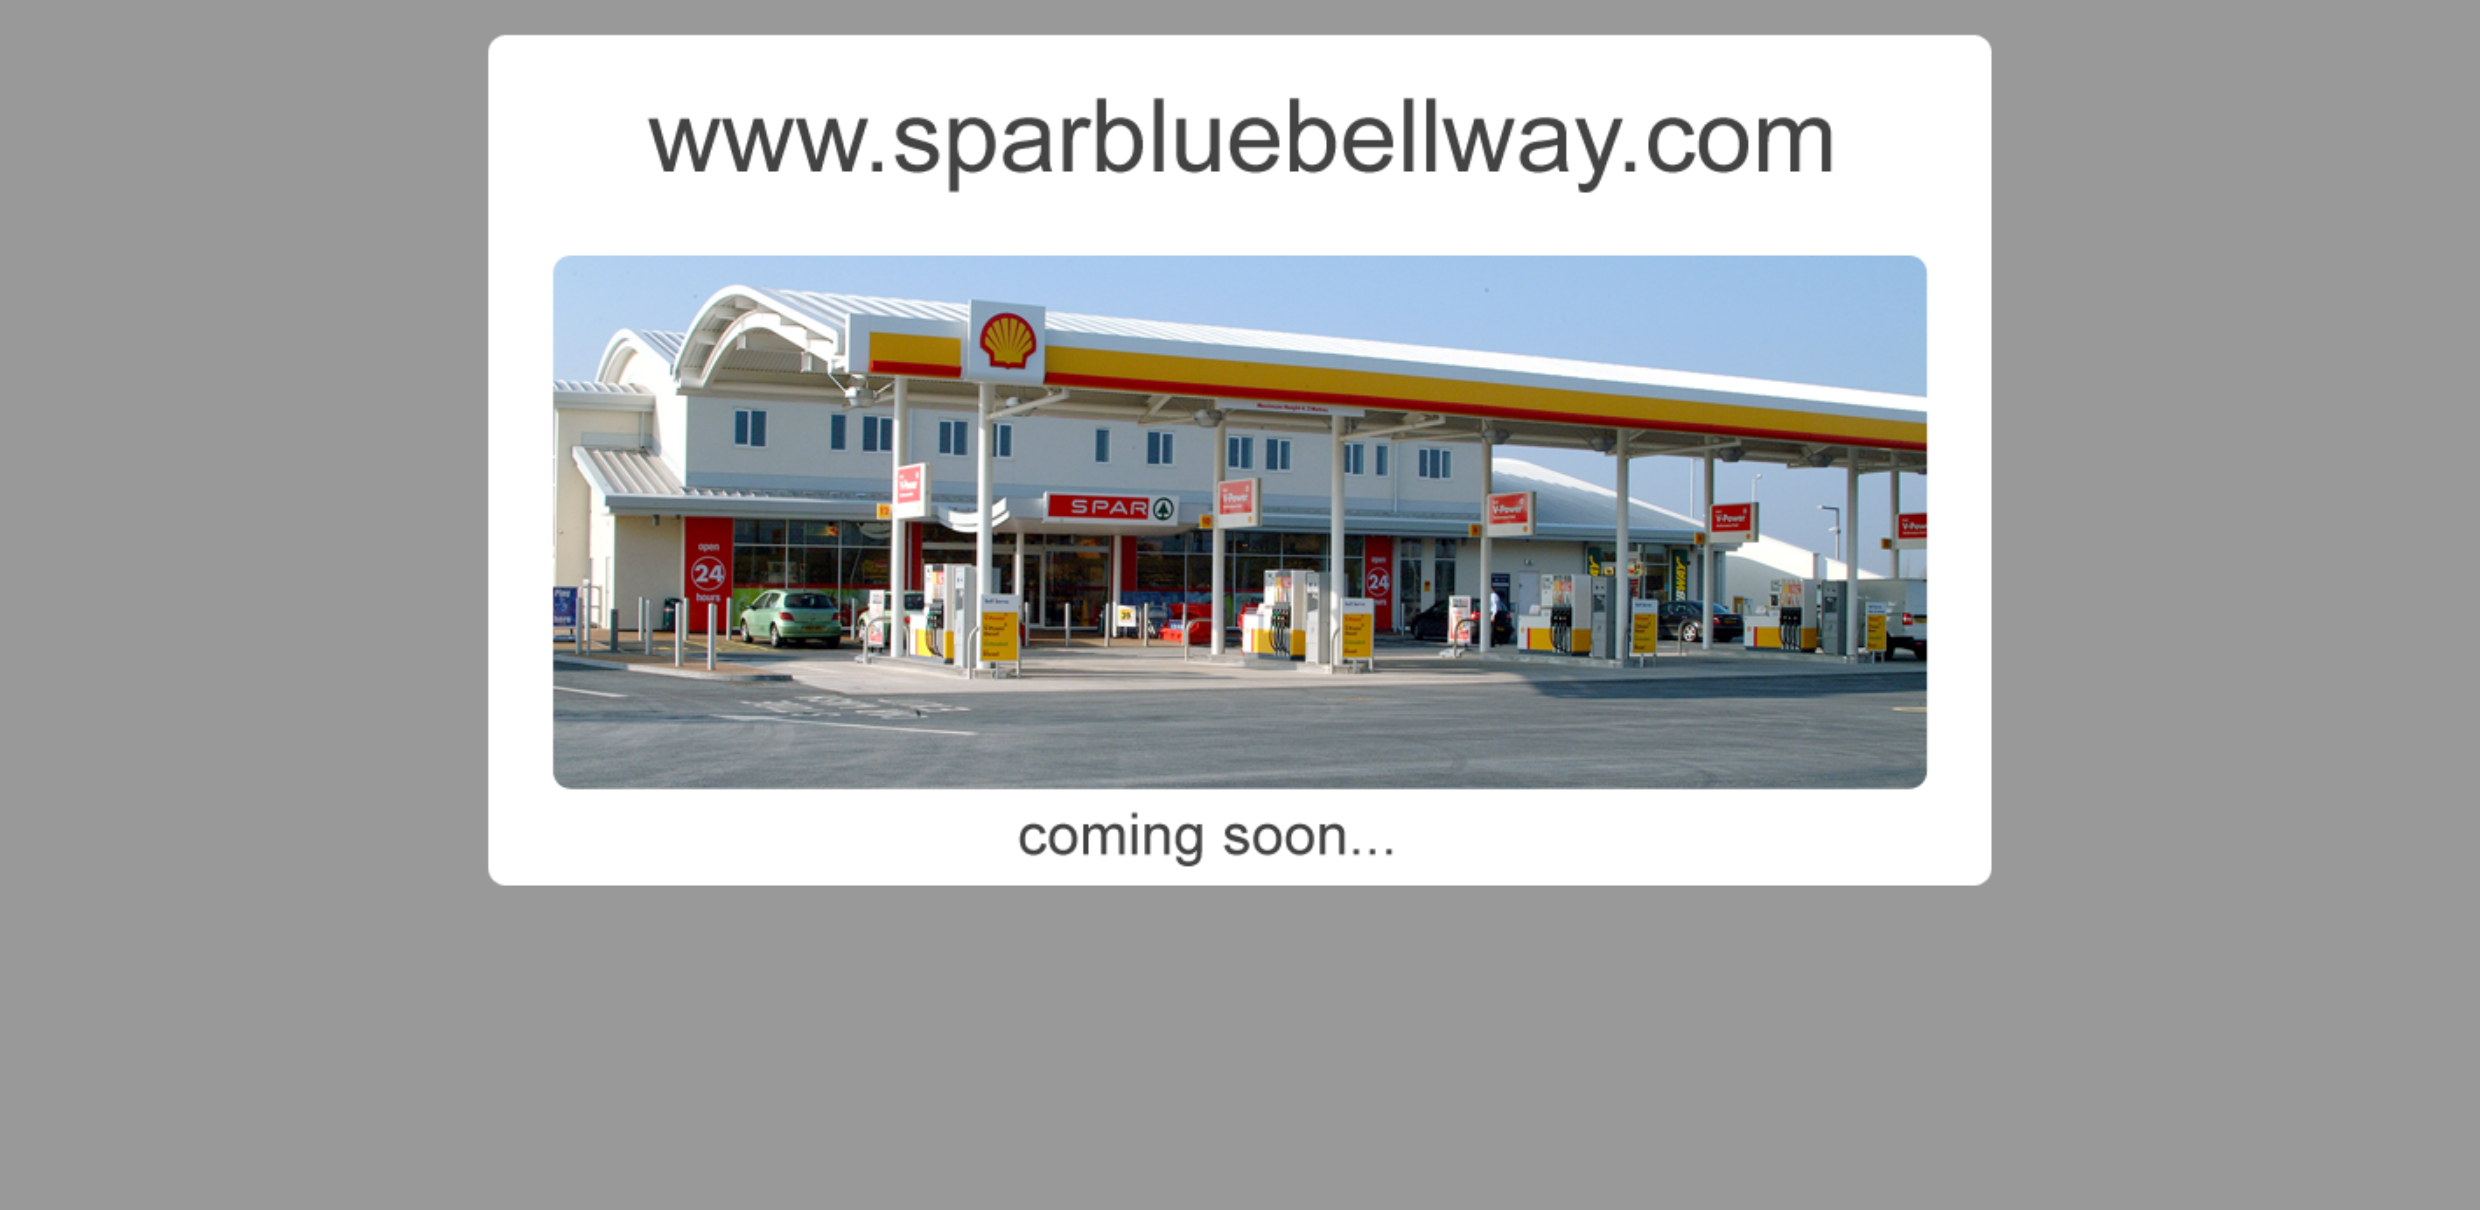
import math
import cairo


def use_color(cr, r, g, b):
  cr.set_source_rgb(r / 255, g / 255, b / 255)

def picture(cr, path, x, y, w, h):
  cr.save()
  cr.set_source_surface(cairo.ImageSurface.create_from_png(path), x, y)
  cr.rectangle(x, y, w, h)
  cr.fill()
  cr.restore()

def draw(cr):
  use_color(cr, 153, 153, 153)
  cr.paint()
  picture(cr, "img_01.png", 487, 34, 1505, 852)


surface = cairo.ImageSurface(cairo.FORMAT_RGB24, 2480, 1210)
cr = cairo.Context(surface)
options = cairo.FontOptions()
options.set_hint_metrics(cairo.HINT_METRICS_OFF)
options.set_hint_style(cairo.HINT_STYLE_NONE)
cr.set_font_options(options)
cr.set_miter_limit(4)
draw(cr)
surface.write_to_png("out.png")
